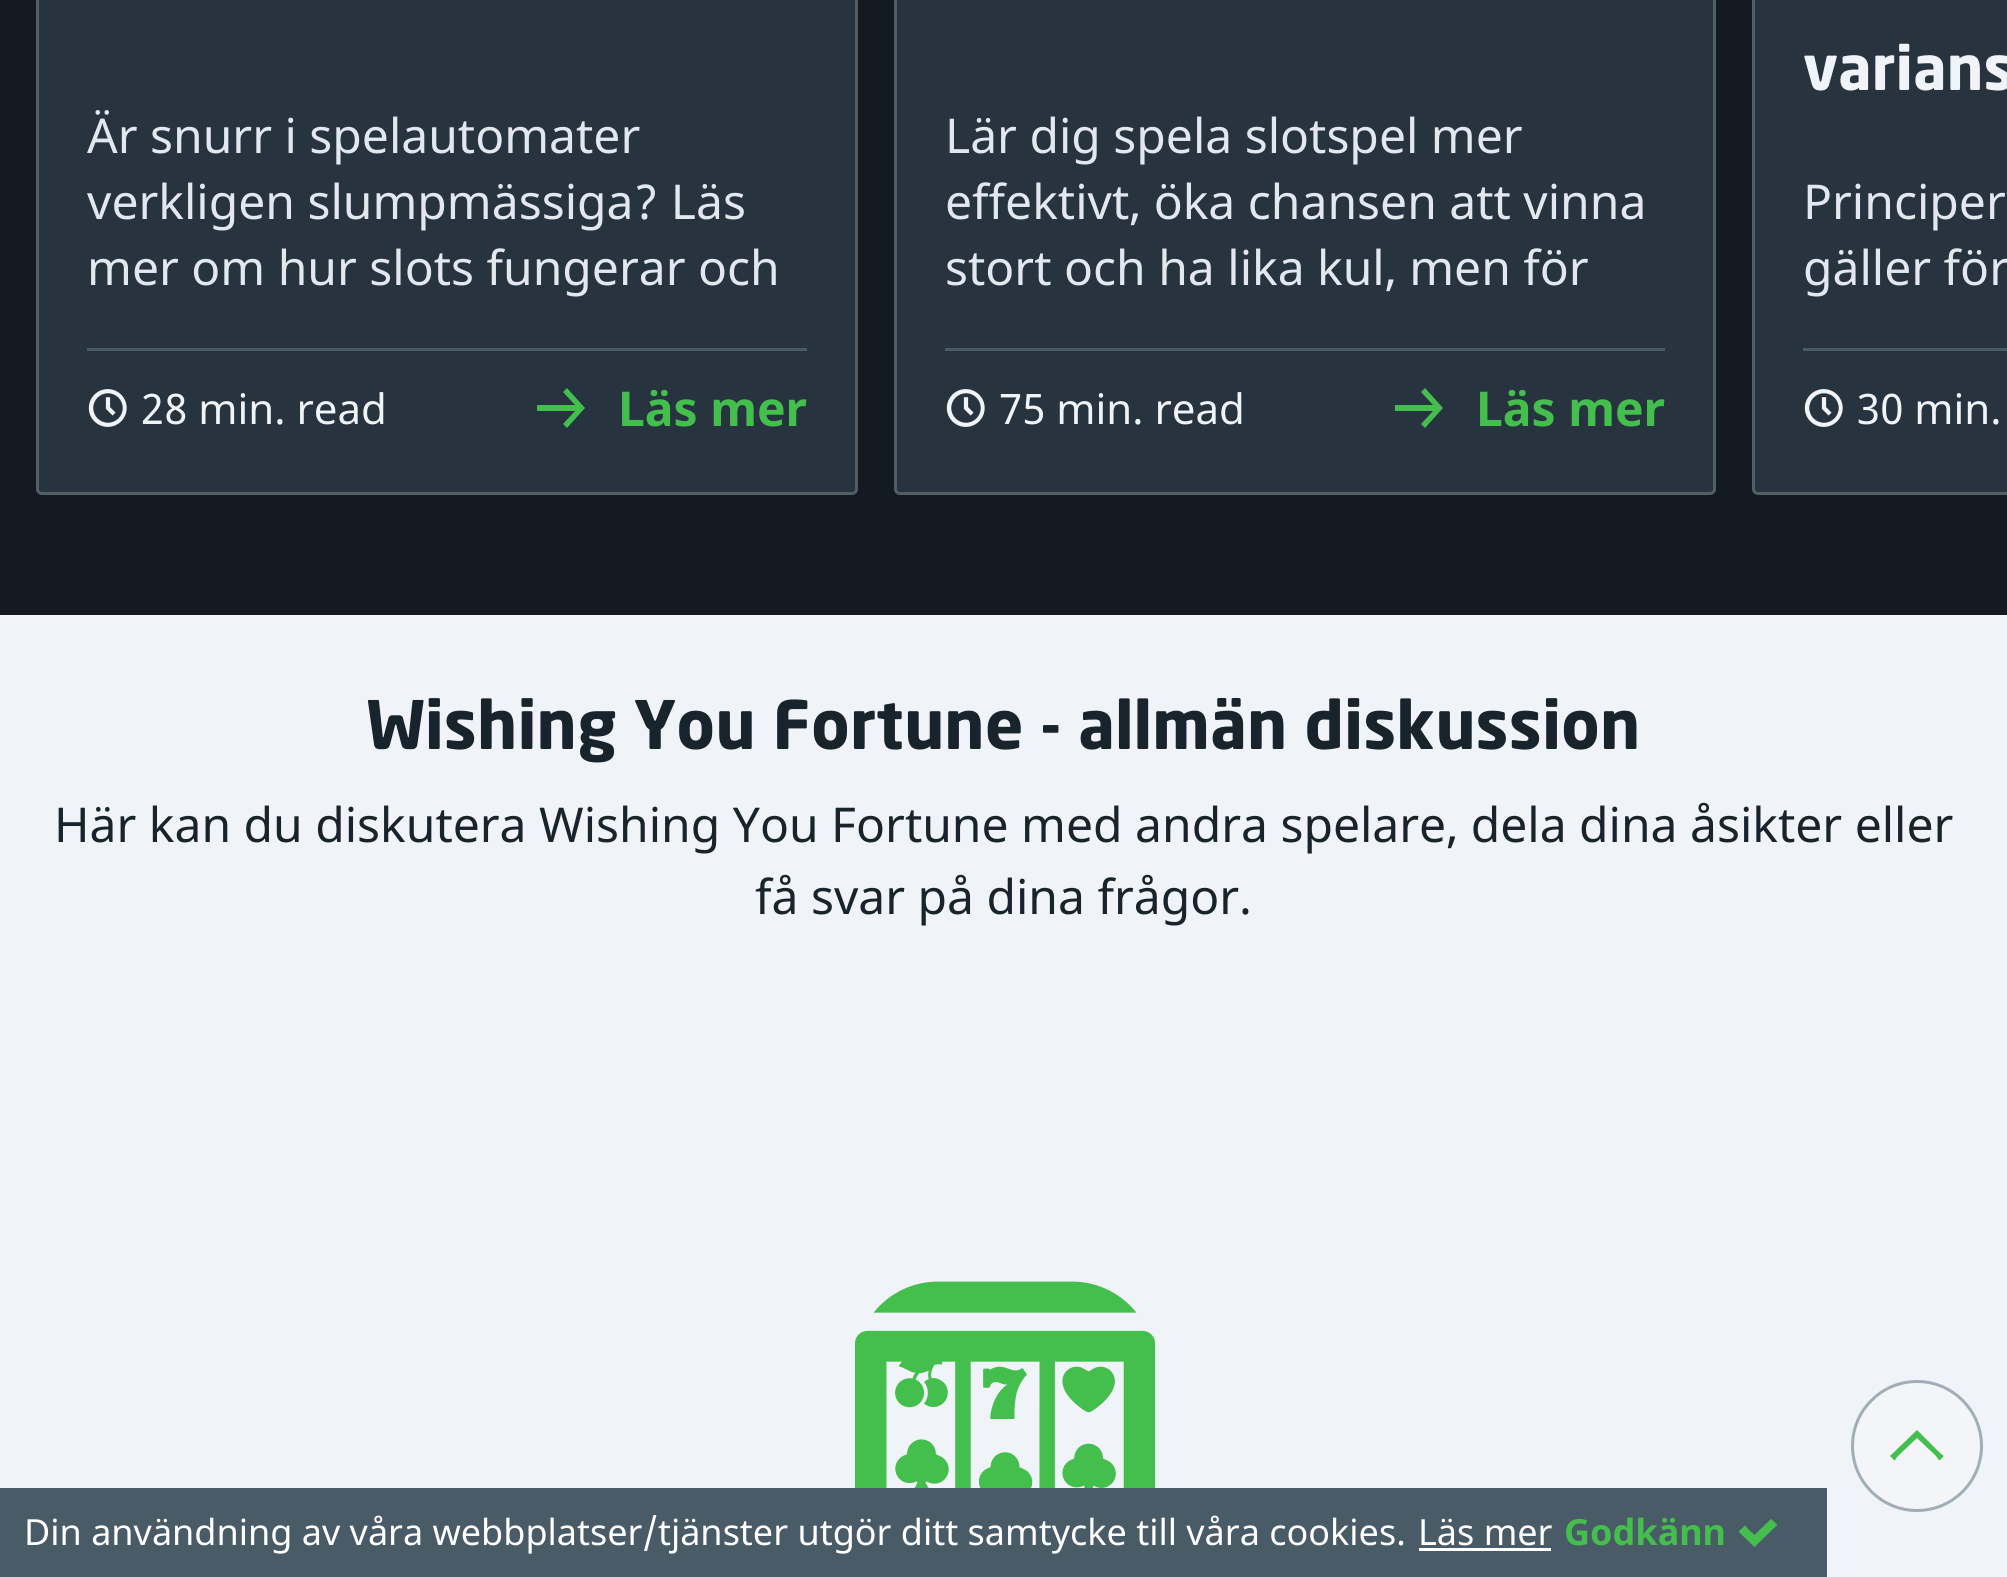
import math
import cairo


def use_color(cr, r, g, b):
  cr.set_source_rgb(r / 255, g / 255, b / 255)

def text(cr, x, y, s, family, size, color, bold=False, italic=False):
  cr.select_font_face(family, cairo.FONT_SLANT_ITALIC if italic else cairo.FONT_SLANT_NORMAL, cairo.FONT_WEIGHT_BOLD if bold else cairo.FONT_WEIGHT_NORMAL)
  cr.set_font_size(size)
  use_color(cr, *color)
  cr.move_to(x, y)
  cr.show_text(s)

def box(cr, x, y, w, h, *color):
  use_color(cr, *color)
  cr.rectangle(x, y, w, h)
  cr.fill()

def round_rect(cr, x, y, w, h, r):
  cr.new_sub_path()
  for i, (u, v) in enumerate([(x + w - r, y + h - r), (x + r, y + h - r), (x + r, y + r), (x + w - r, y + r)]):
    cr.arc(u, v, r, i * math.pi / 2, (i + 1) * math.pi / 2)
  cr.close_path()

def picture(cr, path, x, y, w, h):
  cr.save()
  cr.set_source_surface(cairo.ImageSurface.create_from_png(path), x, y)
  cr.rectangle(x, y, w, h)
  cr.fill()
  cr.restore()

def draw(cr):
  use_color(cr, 240, 243, 247)
  cr.paint()
  box(cr, 0, 0, 2007, 615, 19, 26, 33)
  use_color(cr, 39, 52, 63)
  round_rect(cr, 36, -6, 822, 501, 6)
  cr.fill()
  round_rect(cr, 37.5, -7.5, 819, 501, 4.5)
  cr.set_source_rgba(1, 1, 1, 0.2)
  cr.set_line_width(3)
  cr.stroke()
  box(cr, 87, 348, 720, 3, 74, 91, 104)
  picture(cr, "img_01.png", 88, 389, 39, 38)
  use_color(cr, 68, 190, 76)
  cr.new_path()
  cr.move_to(567, 388)
  cr.line_to(563, 392)
  cr.line_to(575, 405)
  cr.line_to(537, 405)
  cr.line_to(537, 411)
  cr.line_to(575, 411)
  cr.line_to(563, 424)
  cr.line_to(567, 428)
  cr.line_to(585, 408)
  cr.close_path()
  cr.fill()
  use_color(cr, 39, 52, 63)
  round_rect(cr, 894, -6, 822, 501, 6)
  cr.fill()
  round_rect(cr, 895.5, -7.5, 819, 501, 4.5)
  cr.set_source_rgba(1, 1, 1, 0.2)
  cr.stroke()
  box(cr, 945, 348, 720, 3, 74, 91, 104)
  picture(cr, "img_01.png", 946, 389, 39, 38)
  use_color(cr, 68, 190, 76)
  cr.new_path()
  cr.move_to(1425, 388)
  cr.line_to(1421, 392)
  cr.line_to(1433, 405)
  cr.line_to(1395, 405)
  cr.line_to(1395, 411)
  cr.line_to(1433, 411)
  cr.line_to(1421, 424)
  cr.line_to(1425, 428)
  cr.line_to(1443, 408)
  cr.close_path()
  cr.fill()
  use_color(cr, 39, 52, 63)
  cr.new_path()
  cr.move_to(1758, -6)
  cr.line_to(2007, -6)
  cr.line_to(2007, 495)
  cr.line_to(1758, 495)
  cr.curve_to(1754.5, 495, 1752, 492.5, 1752, 489)
  cr.line_to(1752, 0)
  cr.curve_to(1752, -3.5, 1754.5, -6, 1758, -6)
  cr.close_path()
  cr.fill()
  round_rect(cr, 1753.5, -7.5, 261, 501, 4.5)
  cr.set_source_rgba(1, 1, 1, 0.2)
  cr.stroke()
  box(cr, 1803, 348, 204, 3, 74, 91, 104)
  picture(cr, "img_01.png", 1804, 389, 39, 38)
  picture(cr, "img_02.png", 855, 1281, 300, 207)
  use_color(cr, 243, 245, 249)
  cr.arc(1917, 1446, 64.5, 0, 2 * math.pi)
  cr.fill_preserve()
  use_color(cr, 162, 174, 183)
  cr.stroke()
  use_color(cr, 68, 190, 76)
  cr.new_path()
  cr.move_to(1917, 1430)
  cr.line_to(1939, 1452)
  cr.curve_to(1943, 1456, 1945, 1455, 1942, 1458)
  cr.curve_to(1938, 1462, 1940, 1461, 1936, 1456)
  cr.line_to(1917, 1438)
  cr.line_to(1898, 1456)
  cr.curve_to(1894, 1460, 1896, 1462, 1893, 1459)
  cr.line_to(1890, 1456)
  cr.close_path()
  cr.fill()
  box(cr, 0, 1488, 1827, 89, 74, 91, 104)
  box(cr, 1419, 1548, 132, 3, 255, 255, 255)
  use_color(cr, 68, 190, 76)
  cr.new_path()
  cr.move_to(1754.5, 1547)
  cr.line_to(1741.5, 1534.5)
  cr.curve_to(1737.5, 1530.5, 1738, 1532.5, 1742.5, 1528)
  cr.curve_to(1746, 1524.5, 1744.5, 1525, 1748, 1529)
  cr.line_to(1754.5, 1535)
  cr.line_to(1771, 1519)
  cr.line_to(1774.5, 1522)
  cr.curve_to(1778.5, 1526, 1778, 1524, 1773.5, 1528.5)
  cr.close_path()
  cr.fill()
  text(cr, 87, 153, "Är snurr i spelautomater", "Noto Sans", 48, (227, 231, 239))
  text(cr, 87, 219, "verkligen slumpmässiga? Läs", "Noto Sans", 48, (227, 231, 239))
  text(cr, 87, 285, "mer om hur slots fungerar och", "Noto Sans", 48, (227, 231, 239))
  text(cr, 141, 424, "28 min. read", "Noto Sans", 42, (240, 243, 247))
  text(cr, 618, 426, "Läs mer", "Noto Sans", 48, (68, 190, 76), bold=True)
  text(cr, 945, 153, "Lär dig spela slotspel mer", "Noto Sans", 48, (227, 231, 239))
  text(cr, 945, 219, "effektivt, öka chansen att vinna", "Noto Sans", 48, (227, 231, 239))
  text(cr, 945, 285, "stort och ha lika kul, men för", "Noto Sans", 48, (227, 231, 239))
  text(cr, 999, 424, "75 min. read", "Noto Sans", 42, (240, 243, 247))
  text(cr, 1476, 426, "Läs mer", "Noto Sans", 48, (68, 190, 76), bold=True)
  text(cr, 1803, 90, "varians", "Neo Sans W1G", 60, (240, 243, 247), bold=True)
  text(cr, 1803, 219, "Principer", "Noto Sans", 48, (227, 231, 239))
  text(cr, 1803, 285, "gäller för", "Noto Sans", 48, (227, 231, 239))
  text(cr, 1857, 424, "30 min.", "Noto Sans", 42, (240, 243, 247))
  text(cr, 366, 749, "Wishing You Fortune - allmän diskussion", "Neo Sans W1G", 66, (25, 35, 44), bold=True)
  text(cr, 54, 842, "Här kan du diskutera Wishing You Fortune med andra spelare, dela dina åsikter eller", "Noto Sans", 48, (25, 35, 44))
  text(cr, 755, 914, "få svar på dina frågor.", "Noto Sans", 48, (25, 35, 44))
  text(cr, 24, 1545, "Din användning av våra webbplatser/tjänster utgör ditt samtycke till våra cookies.", "Noto Sans", 36, (255, 255, 255))
  text(cr, 1418, 1545, "Läs mer", "Noto Sans", 36, (255, 255, 255))
  text(cr, 1564, 1545, "Godkänn", "Noto Sans", 36, (68, 190, 76), bold=True)


surface = cairo.ImageSurface(cairo.FORMAT_RGB24, 2007, 1577)
cr = cairo.Context(surface)
options = cairo.FontOptions()
options.set_hint_metrics(cairo.HINT_METRICS_OFF)
options.set_hint_style(cairo.HINT_STYLE_NONE)
cr.set_font_options(options)
cr.set_miter_limit(4)
draw(cr)
surface.write_to_png("out.png")
